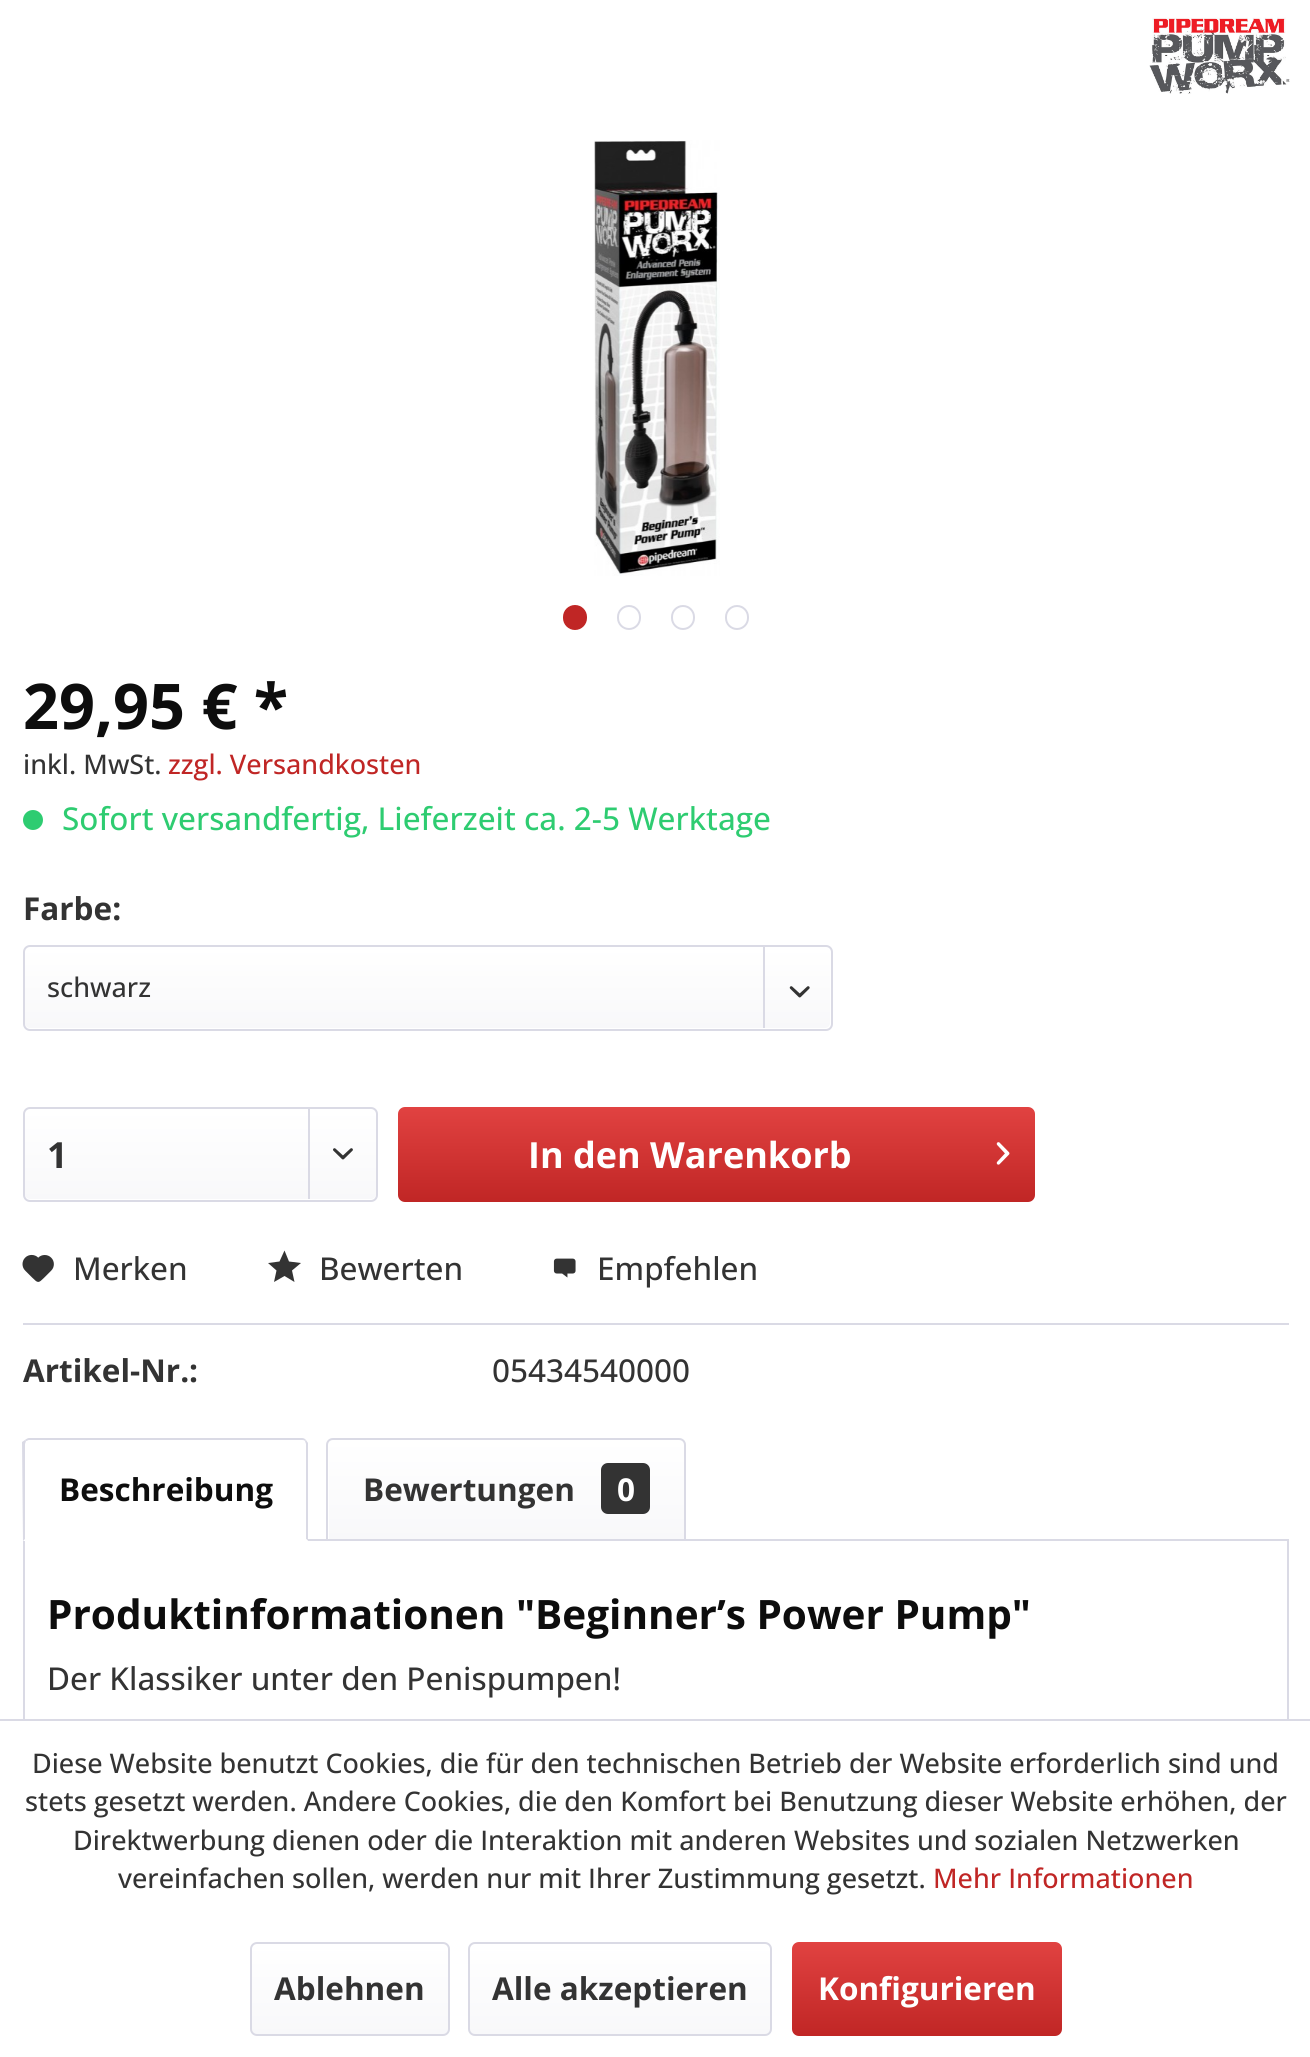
import math
import cairo


def use_color(cr, r, g, b):
  cr.set_source_rgb(r / 255, g / 255, b / 255)

def text(cr, x, y, s, family, size, color, bold=False, italic=False):
  cr.select_font_face(family, cairo.FONT_SLANT_ITALIC if italic else cairo.FONT_SLANT_NORMAL, cairo.FONT_WEIGHT_BOLD if bold else cairo.FONT_WEIGHT_NORMAL)
  cr.set_font_size(size)
  use_color(cr, *color)
  cr.move_to(x, y)
  cr.show_text(s)

def box(cr, x, y, w, h, *color):
  use_color(cr, *color)
  cr.rectangle(x, y, w, h)
  cr.fill()

def round_rect(cr, x, y, w, h, r):
  cr.new_sub_path()
  for i, (u, v) in enumerate([(x + w - r, y + h - r), (x + r, y + h - r), (x + r, y + r), (x + w - r, y + r)]):
    cr.arc(u, v, r, i * math.pi / 2, (i + 1) * math.pi / 2)
  cr.close_path()

def picture(cr, path, x, y, w, h):
  cr.save()
  cr.set_source_surface(cairo.ImageSurface.create_from_png(path), x, y)
  cr.rectangle(x, y, w, h)
  cr.fill()
  cr.restore()

def draw(cr):
  use_color(cr, 255, 255, 255)
  cr.paint()
  picture(cr, "img_01.png", 1149, 17, 141, 77)
  picture(cr, "img_02.png", 594, 140, 126, 436)
  use_color(cr, 192, 38, 37)
  round_rect(cr, 564, 606, 22, 23, 11)
  cr.fill_preserve()
  cr.stroke()
  round_rect(cr, 618, 606, 22, 23, 11)
  use_color(cr, 218, 218, 229)
  cr.stroke()
  round_rect(cr, 672, 606, 22, 23, 11)
  cr.stroke()
  round_rect(cr, 726, 606, 22, 23, 11)
  cr.stroke()
  use_color(cr, 46, 204, 113)
  cr.arc(33, 820, 10, 0, 2 * math.pi)
  cr.fill()
  gradient = cairo.LinearGradient(428, 947, 428, 1028)
  gradient.add_color_stop_rgba(0, 1, 1, 1, 1)
  gradient.add_color_stop_rgba(1, 0.973, 0.973, 0.98, 1)
  cr.set_source(gradient)
  round_rect(cr, 25, 947, 805, 81, 5)
  cr.fill()
  round_rect(cr, 24, 946, 808, 84, 6)
  use_color(cr, 218, 218, 229)
  cr.stroke()
  box(cr, 763, 947, 2, 81, 218, 218, 229)
  picture(cr, "img_03.png", 789, 986, 21, 12)
  gradient = cairo.LinearGradient(200, 1109, 200, 1199)
  gradient.add_color_stop_rgba(0, 1, 1, 1, 1)
  gradient.add_color_stop_rgba(1, 0.973, 0.973, 0.98, 1)
  cr.set_source(gradient)
  round_rect(cr, 25, 1109, 351, 90, 5)
  cr.fill()
  round_rect(cr, 24, 1108, 353, 93, 6)
  use_color(cr, 218, 218, 229)
  cr.stroke()
  box(cr, 308, 1109, 2, 90, 218, 218, 229)
  picture(cr, "img_04.png", 333, 1148, 20, 12)
  gradient = cairo.LinearGradient(717, 1107, 717, 1202)
  gradient.add_color_stop_rgba(0, 0.882, 0.259, 0.255, 1)
  gradient.add_color_stop_rgba(1, 0.753, 0.149, 0.145, 1)
  cr.set_source(gradient)
  round_rect(cr, 398, 1107, 637, 95, 7)
  cr.fill()
  picture(cr, "img_05.png", 996, 1142, 14, 23)
  box(cr, 23, 1323, 1266, 2, 218, 218, 229)
  picture(cr, "img_06.png", 22, 1254, 32, 28)
  use_color(cr, 51, 51, 51)
  cr.new_path()
  cr.move_to(284.5, 1250.5)
  cr.line_to(279.5, 1261.5)
  cr.line_to(268, 1263)
  cr.line_to(276.5, 1270.5)
  cr.line_to(274, 1282)
  cr.line_to(284.5, 1276)
  cr.line_to(294.5, 1282)
  cr.line_to(292, 1270.5)
  cr.line_to(301, 1263)
  cr.line_to(289, 1261.5)
  cr.close_path()
  cr.fill()
  picture(cr, "img_07.png", 553, 1258, 23, 20)
  cr.rectangle(24, 1540, 1264, 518)
  use_color(cr, 218, 218, 229)
  cr.stroke()
  use_color(cr, 255, 255, 255)
  cr.new_path()
  cr.move_to(30, 1438)
  cr.line_to(301, 1438)
  cr.curve_to(305, 1438, 308, 1441, 308, 1445)
  cr.line_to(308, 1541)
  cr.line_to(23, 1541)
  cr.line_to(23, 1445)
  cr.curve_to(23, 1441, 26, 1438, 30, 1438)
  cr.close_path()
  cr.fill()
  use_color(cr, 218, 218, 229)
  cr.new_path()
  cr.move_to(29, 1438)
  cr.curve_to(28, 1438, 26, 1439, 25, 1440)
  cr.line_to(26, 1441)
  cr.curve_to(27, 1441, 28, 1440, 29, 1440)
  cr.line_to(302, 1440)
  cr.curve_to(303, 1440, 304, 1440, 305, 1441)
  cr.line_to(306, 1440)
  cr.curve_to(305, 1439, 304, 1438, 302, 1438)
  cr.close_path()
  cr.fill()
  cr.new_path()
  cr.move_to(308, 1541)
  cr.line_to(308, 1443)
  cr.line_to(306, 1440)
  cr.line_to(305, 1441)
  cr.line_to(306, 1444)
  cr.line_to(306, 1539)
  cr.close_path()
  cr.fill()
  use_color(cr, 255, 255, 255)
  cr.new_path()
  cr.move_to(308, 1541)
  cr.line_to(306, 1539)
  cr.line_to(25, 1539)
  cr.line_to(23, 1541)
  cr.close_path()
  cr.fill()
  use_color(cr, 218, 218, 229)
  cr.new_path()
  cr.move_to(22, 1442)
  cr.line_to(25, 1440)
  cr.line_to(26, 1441)
  cr.line_to(25, 1444)
  cr.line_to(25, 1539)
  cr.line_to(23, 1541)
  cr.close_path()
  cr.fill()
  gradient = cairo.LinearGradient(506, 1440, 506, 1539)
  gradient.add_color_stop_rgba(0, 1, 1, 1, 1)
  gradient.add_color_stop_rgba(1, 0.973, 0.973, 0.98, 1)
  cr.set_source(gradient)
  cr.new_path()
  cr.move_to(334, 1440)
  cr.line_to(679, 1440)
  cr.curve_to(682, 1440, 684, 1442, 684, 1445)
  cr.line_to(684, 1539)
  cr.line_to(329, 1539)
  cr.line_to(329, 1445)
  cr.curve_to(329, 1442, 331, 1440, 334, 1440)
  cr.close_path()
  cr.fill()
  cr.new_path()
  cr.move_to(333, 1439)
  cr.line_to(679, 1439)
  cr.curve_to(682.5, 1439, 685, 1441.5, 685, 1445)
  cr.line_to(685, 1540)
  cr.line_to(327, 1540)
  cr.line_to(327, 1445)
  cr.curve_to(327, 1441.5, 329.5, 1439, 333, 1439)
  cr.close_path()
  use_color(cr, 218, 218, 229)
  cr.stroke()
  use_color(cr, 51, 51, 51)
  round_rect(cr, 601, 1463, 49, 51, 7)
  cr.fill()
  box(cr, 23, 1721, 1266, 336, 255, 255, 255)
  box(cr, 0, 1719, 1310, 2, 218, 218, 229)
  gradient = cairo.LinearGradient(350, 1944, 350, 2034)
  gradient.add_color_stop_rgba(0, 1, 1, 1, 1)
  gradient.add_color_stop_rgba(1, 0.973, 0.973, 0.98, 1)
  cr.set_source(gradient)
  round_rect(cr, 252, 1944, 196, 90, 5)
  cr.fill()
  round_rect(cr, 251, 1943, 198, 92, 6)
  use_color(cr, 218, 218, 229)
  cr.stroke()
  gradient = cairo.LinearGradient(620, 1944, 620, 2034)
  gradient.add_color_stop_rgba(0, 1, 1, 1, 1)
  gradient.add_color_stop_rgba(1, 0.973, 0.973, 0.98, 1)
  cr.set_source(gradient)
  round_rect(cr, 470, 1944, 300, 90, 5)
  cr.fill()
  round_rect(cr, 469, 1943, 302, 92, 6)
  use_color(cr, 218, 218, 229)
  cr.stroke()
  gradient = cairo.LinearGradient(927, 1942, 927, 2036)
  gradient.add_color_stop_rgba(0, 0.882, 0.259, 0.255, 1)
  gradient.add_color_stop_rgba(1, 0.753, 0.149, 0.145, 1)
  cr.set_source(gradient)
  round_rect(cr, 792, 1942, 270, 94, 7)
  cr.fill()
  text(cr, 23, 729, "29,95 € *", "Open Sans", 63, (13, 13, 13), bold=True)
  text(cr, 23, 774, "inkl. MwSt.", "Open Sans Medium", 27, (51, 51, 51))
  text(cr, 168, 774, "zzgl. Versandkosten", "Open Sans Medium", 27, (192, 38, 37))
  text(cr, 62, 830, "Sofort versandfertig, Lieferzeit ca. 2-5 Werktage", "Open Sans Medium", 31.5, (46, 204, 113))
  text(cr, 23, 920, "Farbe:", "Open Sans", 31.5, (51, 51, 51), bold=True)
  text(cr, 47, 997, "schwarz", "Open Sans Medium", 27, (51, 51, 51))
  text(cr, 47, 1168, "1", "Open Sans", 36, (51, 51, 51), bold=True)
  text(cr, 528, 1168, "In den Warenkorb", "Open Sans", 36, (255, 255, 255), bold=True)
  text(cr, 73, 1280, "Merken", "Open Sans Medium", 31.5, (51, 51, 51))
  text(cr, 319, 1280, "Bewerten", "Open Sans Medium", 31.5, (51, 51, 51))
  text(cr, 597, 1280, "Empfehlen", "Open Sans Medium", 31.5, (51, 51, 51))
  text(cr, 23, 1382, "Artikel-Nr.:", "Open Sans", 31.5, (51, 51, 51), bold=True)
  text(cr, 492, 1382, "05434540000", "Open Sans Medium", 31.5, (51, 51, 51))
  text(cr, 59, 1501, "Beschreibung", "Open Sans", 31.5, (13, 13, 13), bold=True)
  text(cr, 363, 1501, "Bewertungen", "Open Sans", 31.5, (51, 51, 51), bold=True)
  text(cr, 617, 1501, "0", "Open Sans", 31.5, (255, 255, 255), bold=True)
  text(cr, 47, 1629, "Produktinformationen \"Beginner’s Power Pump\"", "Open Sans", 40.5, (13, 13, 13), bold=True)
  text(cr, 47, 1690, "Der Klassiker unter den Penispumpen!", "Open Sans Medium", 31.5, (51, 51, 51))
  text(cr, 32, 1773, "Diese Website benutzt Cookies, die für den technischen Betrieb der Website erforderlich sind und", "Open Sans Medium", 27, (51, 51, 51))
  text(cr, 25, 1811, "stets gesetzt werden. Andere Cookies, die den Komfort bei Benutzung dieser Website erhöhen, der", "Open Sans Medium", 27, (51, 51, 51))
  text(cr, 73, 1850, "Direktwerbung dienen oder die Interaktion mit anderen Websites und sozialen Netzwerken", "Open Sans Medium", 27, (51, 51, 51))
  text(cr, 118, 1888, "vereinfachen sollen, werden nur mit Ihrer Zustimmung gesetzt.", "Open Sans Medium", 27, (51, 51, 51))
  text(cr, 933, 1888, "Mehr Informationen", "Open Sans Medium", 27, (192, 38, 37))
  text(cr, 274, 2000, "Ablehnen", "Open Sans", 31.5, (51, 51, 51), bold=True)
  text(cr, 492, 2000, "Alle akzeptieren", "Open Sans", 31.5, (51, 51, 51), bold=True)
  text(cr, 818, 2000, "Konfigurieren", "Open Sans", 31.5, (255, 255, 255), bold=True)


surface = cairo.ImageSurface(cairo.FORMAT_RGB24, 1310, 2057)
cr = cairo.Context(surface)
options = cairo.FontOptions()
options.set_hint_metrics(cairo.HINT_METRICS_OFF)
options.set_hint_style(cairo.HINT_STYLE_NONE)
cr.set_font_options(options)
cr.set_miter_limit(4)
draw(cr)
surface.write_to_png("out.png")
